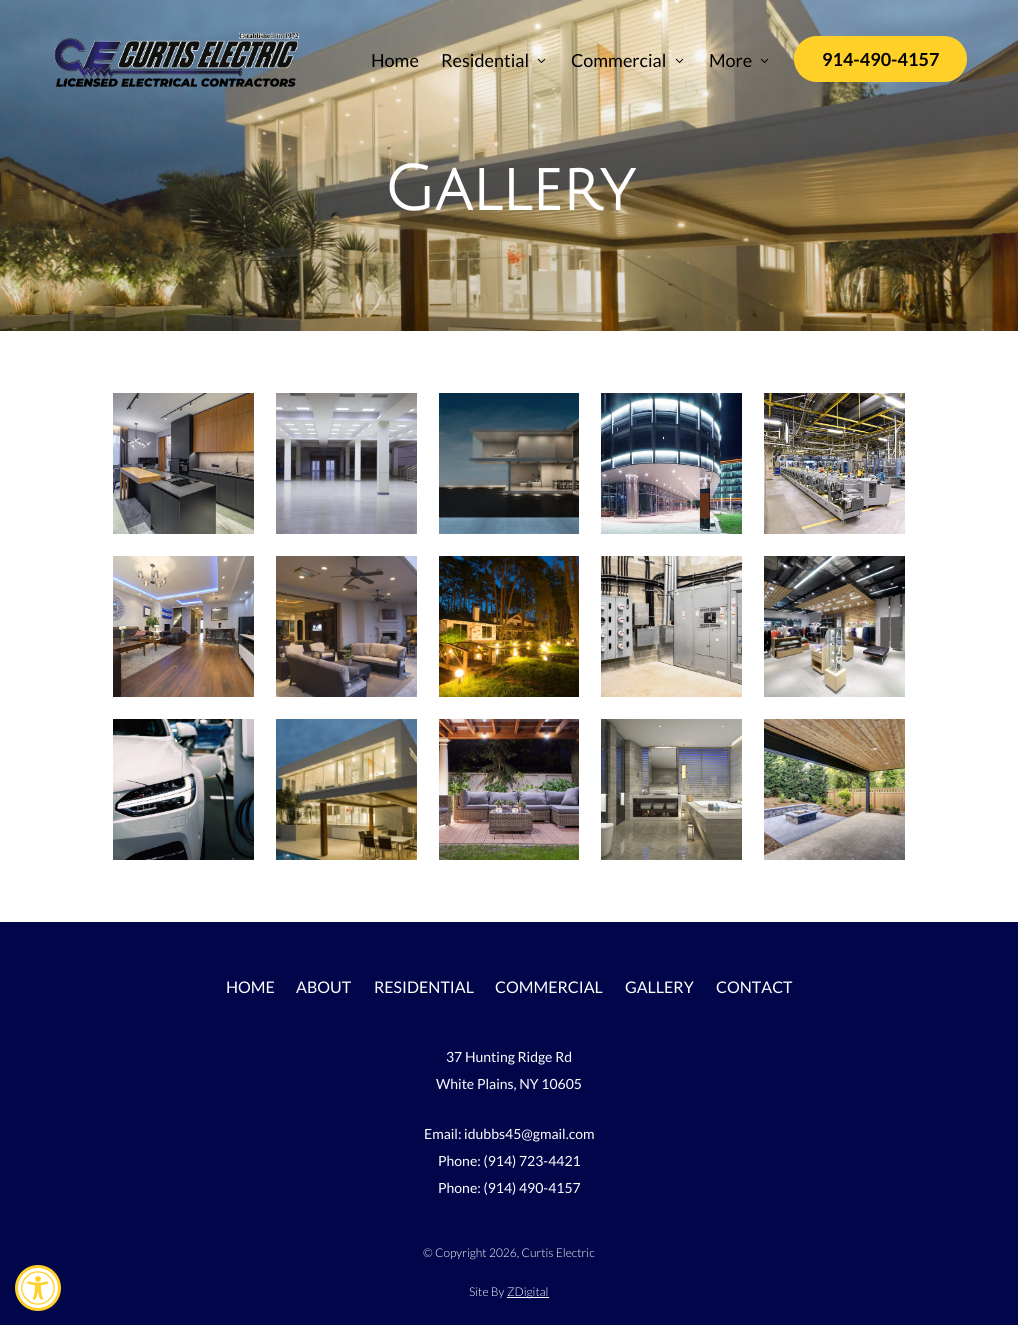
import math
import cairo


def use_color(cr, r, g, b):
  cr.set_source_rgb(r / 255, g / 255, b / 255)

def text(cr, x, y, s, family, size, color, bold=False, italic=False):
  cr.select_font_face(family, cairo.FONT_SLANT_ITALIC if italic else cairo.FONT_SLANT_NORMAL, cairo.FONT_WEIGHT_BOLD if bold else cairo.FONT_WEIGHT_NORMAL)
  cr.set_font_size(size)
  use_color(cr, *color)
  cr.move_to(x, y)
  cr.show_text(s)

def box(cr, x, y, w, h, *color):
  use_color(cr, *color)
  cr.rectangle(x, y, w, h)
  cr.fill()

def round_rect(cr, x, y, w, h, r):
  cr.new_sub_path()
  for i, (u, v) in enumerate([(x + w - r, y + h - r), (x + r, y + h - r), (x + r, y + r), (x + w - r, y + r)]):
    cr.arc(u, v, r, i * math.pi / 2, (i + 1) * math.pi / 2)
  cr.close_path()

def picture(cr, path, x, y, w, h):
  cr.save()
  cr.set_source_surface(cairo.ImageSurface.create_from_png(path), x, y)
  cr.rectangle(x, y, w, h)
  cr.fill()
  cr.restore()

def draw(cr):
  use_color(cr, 255, 255, 255)
  cr.paint()
  box(cr, 0, 922, 1018, 403, 1, 6, 75)
  use_color(cr, 255, 208, 39)
  cr.arc(38, 1288, 23, 0, 2 * math.pi)
  cr.fill()
  picture(cr, "img_01.png", 18, 1268, 40, 40)
  picture(cr, "img_06.png", 0, 0, 1018, 331)
  picture(cr, "img_02.png", 54, 32, 245, 55)
  picture(cr, "img_03.png", 537, 58, 9, 5)
  picture(cr, "img_04.png", 675, 58, 9, 5)
  picture(cr, "img_05.png", 760, 58, 9, 5)
  round_rect(cr, 794, 36, 173, 46, 23)
  cr.fill()
  picture(cr, "img_07.png", 113, 393, 141, 141)
  picture(cr, "img_08.png", 276, 393, 141, 141)
  picture(cr, "img_09.png", 439, 393, 140, 141)
  picture(cr, "img_10.png", 601, 393, 141, 141)
  picture(cr, "img_11.png", 764, 393, 141, 141)
  picture(cr, "img_12.png", 113, 556, 141, 141)
  picture(cr, "img_13.png", 276, 556, 141, 141)
  picture(cr, "img_14.png", 439, 556, 140, 141)
  picture(cr, "img_15.png", 601, 556, 141, 141)
  picture(cr, "img_16.png", 764, 556, 141, 141)
  picture(cr, "img_17.png", 113, 719, 141, 141)
  picture(cr, "img_18.png", 276, 719, 141, 141)
  picture(cr, "img_19.png", 439, 719, 140, 141)
  picture(cr, "img_20.png", 601, 719, 141, 141)
  picture(cr, "img_21.png", 764, 719, 141, 141)
  box(cr, 507, 1297, 42, 1, 255, 255, 255)
  text(cr, 371, 67, "Home", "Lato", 18, (0, 0, 0))
  text(cr, 441, 67, "Residential", "Lato", 18, (0, 0, 0))
  text(cr, 571, 67, "Commercial", "Lato", 18, (0, 0, 0))
  text(cr, 709, 67, "More", "Lato", 18, (0, 0, 0))
  text(cr, 822, 66, "914-490-4157", "Lato", 18, (0, 0, 0), bold=True)
  text(cr, 384, 210, "Gallery", "Julius Sans One", 62, (255, 255, 255), bold=True)
  text(cr, 226, 993, "HOME", "Lato", 16, (255, 255, 255))
  text(cr, 296, 993, "ABOUT", "Lato", 16, (255, 255, 255))
  text(cr, 374, 993, "RESIDENTIAL", "Lato", 16, (255, 255, 255))
  text(cr, 495, 993, "COMMERCIAL", "Lato", 16, (255, 255, 255))
  text(cr, 625, 993, "GALLERY", "Lato", 16, (255, 255, 255))
  text(cr, 716, 993, "CONTACT", "Lato", 16, (255, 255, 255))
  text(cr, 446, 1062, "37 Hunting Ridge Rd", "Lato", 14, (255, 255, 255))
  text(cr, 436, 1089, "White Plains, NY 10605", "Lato", 14, (255, 255, 255))
  text(cr, 424, 1139, "Email: idubbs45@gmail.com", "Lato", 14, (255, 255, 255))
  text(cr, 438, 1166, "Phone: (914) 723-4421", "Lato", 14, (255, 255, 255))
  text(cr, 438, 1193, "Phone: (914) 490-4157", "Lato", 14, (255, 255, 255))
  text(cr, 423, 1257, "© Copyright 2026, Curtis Electric", "Lato Light", 12, (255, 255, 255))
  text(cr, 469, 1296, "Site By", "Lato Light", 12, (255, 255, 255))
  text(cr, 507, 1296, "ZDigital", "Lato Light", 12, (255, 255, 255))


surface = cairo.ImageSurface(cairo.FORMAT_RGB24, 1018, 1325)
cr = cairo.Context(surface)
options = cairo.FontOptions()
options.set_hint_metrics(cairo.HINT_METRICS_OFF)
options.set_hint_style(cairo.HINT_STYLE_NONE)
cr.set_font_options(options)
cr.set_miter_limit(4)
draw(cr)
surface.write_to_png("out.png")
